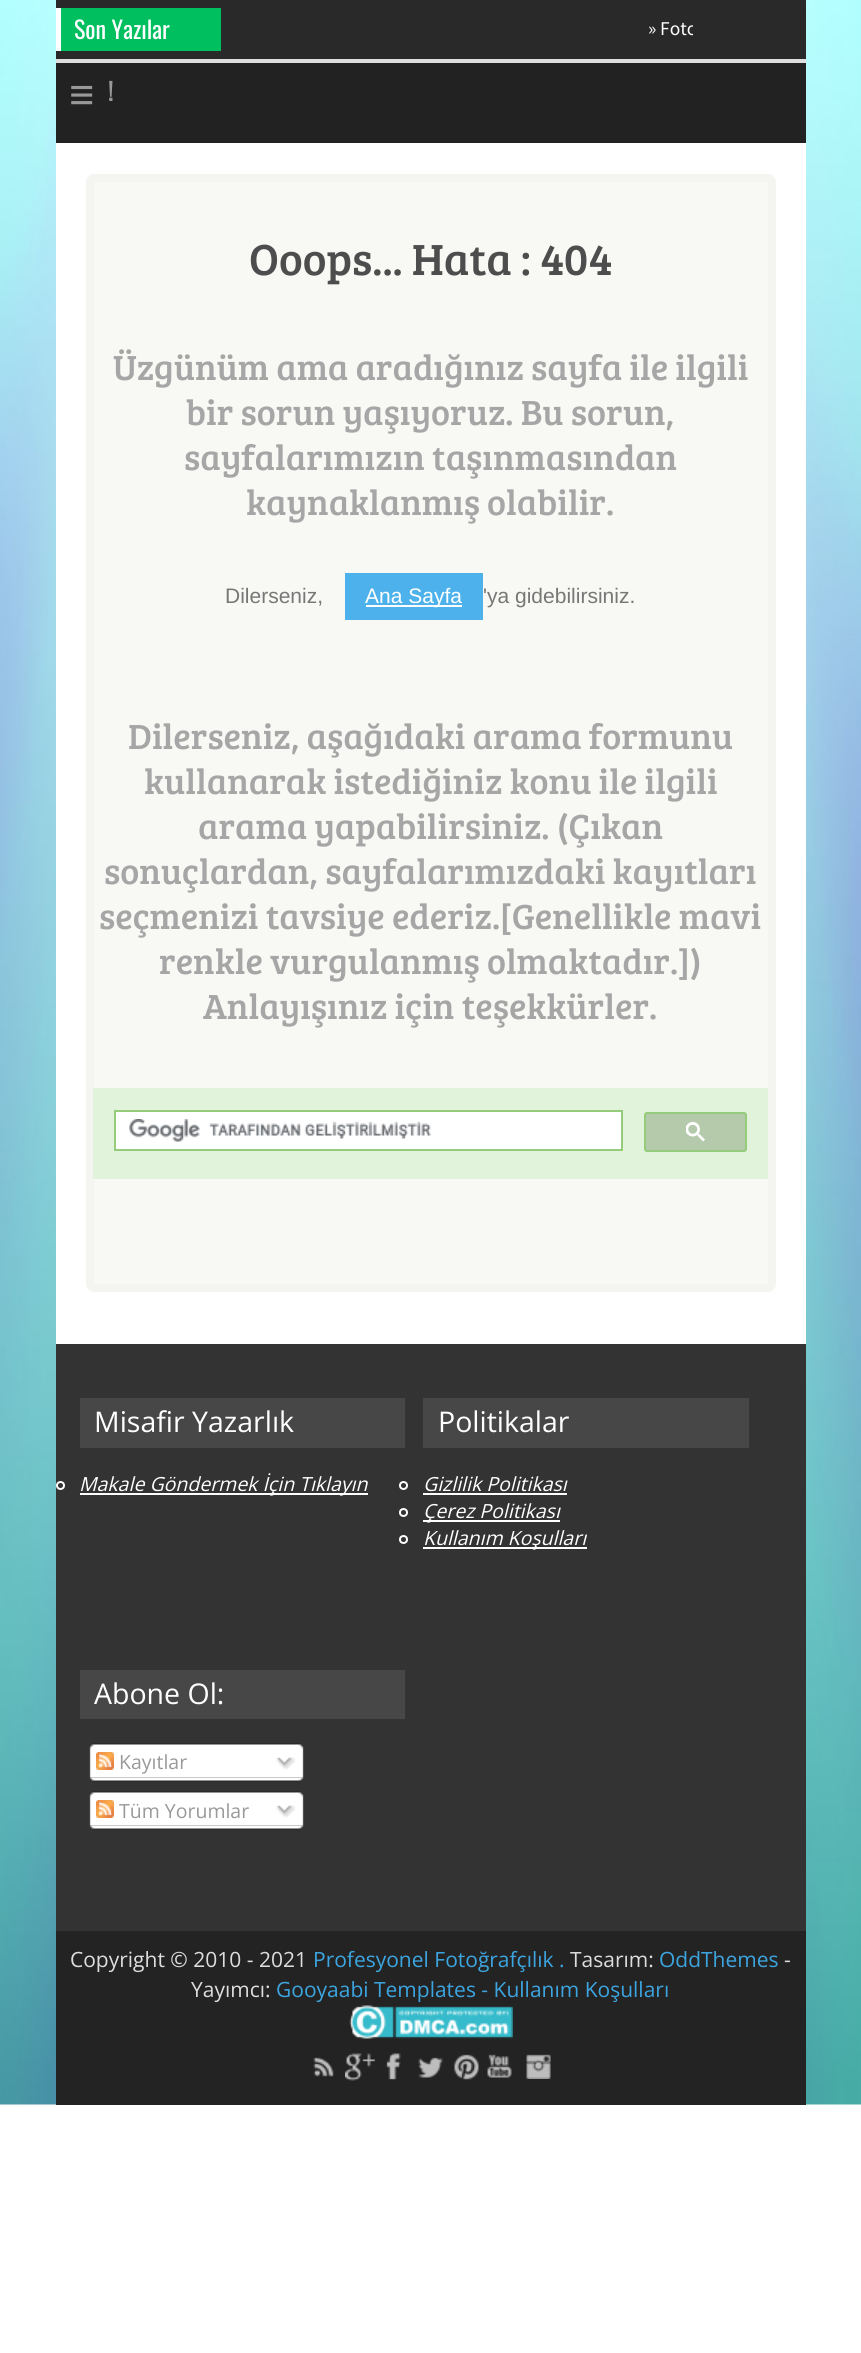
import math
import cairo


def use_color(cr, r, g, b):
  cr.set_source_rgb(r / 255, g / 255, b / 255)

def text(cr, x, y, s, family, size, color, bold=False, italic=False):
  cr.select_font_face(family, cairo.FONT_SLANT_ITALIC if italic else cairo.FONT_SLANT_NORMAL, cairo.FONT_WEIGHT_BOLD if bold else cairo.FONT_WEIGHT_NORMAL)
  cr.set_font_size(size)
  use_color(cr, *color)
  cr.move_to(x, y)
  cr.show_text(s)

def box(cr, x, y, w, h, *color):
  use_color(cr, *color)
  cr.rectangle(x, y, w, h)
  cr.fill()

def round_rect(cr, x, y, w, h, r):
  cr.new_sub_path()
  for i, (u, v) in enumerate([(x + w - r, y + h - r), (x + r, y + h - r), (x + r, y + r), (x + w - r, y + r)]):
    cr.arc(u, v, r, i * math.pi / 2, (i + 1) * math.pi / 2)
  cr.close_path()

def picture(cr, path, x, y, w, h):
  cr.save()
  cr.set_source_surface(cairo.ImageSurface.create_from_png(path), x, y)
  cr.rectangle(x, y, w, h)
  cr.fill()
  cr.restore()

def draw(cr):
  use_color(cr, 255, 255, 255)
  cr.paint()
  picture(cr, "img_01.png", 0, 0, 861, 2105)
  box(cr, 56, 0, 750, 59, 41, 41, 41)
  box(cr, 56, 59, 750, 4, 222, 222, 222)
  box(cr, 61, 8, 160, 43, 0, 191, 95)
  box(cr, 56, 8, 5, 43, 255, 255, 255)
  box(cr, 56, 63, 750, 80, 34, 34, 34)
  box(cr, 56, 143, 750, 1201, 255, 255, 255)
  use_color(cr, 248, 249, 245)
  round_rect(cr, 90, 178, 682, 1110, 4)
  cr.fill_preserve()
  use_color(cr, 244, 245, 241)
  cr.set_line_width(8)
  cr.stroke()
  box(cr, 345, 573, 138, 47, 77, 178, 236)
  box(cr, 366, 605, 96, 2, 255, 255, 255)
  box(cr, 93, 1088, 675, 91, 225, 243, 218)
  use_color(cr, 255, 255, 255)
  cr.rectangle(115, 1111, 507, 39)
  cr.fill_preserve()
  use_color(cr, 148, 204, 122)
  cr.set_line_width(2)
  cr.stroke()
  picture(cr, "img_02.png", 129, 1119, 302, 23)
  use_color(cr, 181, 201, 171)
  round_rect(cr, 645, 1113, 101, 38, 2)
  cr.fill_preserve()
  use_color(cr, 148, 204, 122)
  cr.stroke()
  picture(cr, "img_03.png", 686, 1122, 19, 20)
  box(cr, 56, 1344, 750, 587, 51, 51, 51)
  box(cr, 80, 1398, 325, 50, 71, 71, 71)
  cr.arc(60.5, 1485.5, 3.5, 0, 2 * math.pi)
  use_color(cr, 255, 255, 255)
  cr.stroke()
  box(cr, 80, 1493, 288, 2, 255, 255, 255)
  box(cr, 423, 1398, 326, 50, 71, 71, 71)
  cr.arc(403.5, 1485.5, 3.5, 0, 2 * math.pi)
  use_color(cr, 255, 255, 255)
  cr.stroke()
  box(cr, 423, 1493, 144, 2, 255, 255, 255)
  cr.arc(403.5, 1512.5, 3.5, 0, 2 * math.pi)
  cr.stroke()
  box(cr, 423, 1520, 137, 2, 255, 255, 255)
  cr.arc(403.5, 1539.5, 3.5, 0, 2 * math.pi)
  cr.stroke()
  box(cr, 423, 1547, 164, 2, 255, 255, 255)
  box(cr, 80, 1670, 325, 49, 71, 71, 71)
  picture(cr, "img_04.png", 89, 1743, 215, 35)
  picture(cr, "img_05.png", 96, 1752, 18, 18)
  picture(cr, "img_06.png", 276, 1757, 20, 13)
  picture(cr, "img_07.png", 89, 1777, 215, 5)
  picture(cr, "img_04.png", 89, 1791, 215, 35)
  picture(cr, "img_05.png", 96, 1800, 18, 18)
  picture(cr, "img_06.png", 276, 1805, 20, 13)
  picture(cr, "img_07.png", 89, 1825, 215, 5)
  box(cr, 56, 1931, 750, 174, 35, 35, 35)
  picture(cr, "img_08.png", 349, 2005, 164, 34)
  picture(cr, "img_09.png", 313, 2057, 21, 20)
  picture(cr, "img_10.png", 345, 2053, 30, 28)
  picture(cr, "img_11.png", 386, 2053, 15, 27)
  picture(cr, "img_12.png", 418, 2057, 25, 21)
  picture(cr, "img_13.png", 454, 2054, 25, 26)
  picture(cr, "img_14.png", 487, 2054, 25, 24)
  picture(cr, "img_15.png", 526, 2054, 25, 25)
  text(cr, 74, 39, "Son Yazılar", "Oswald", 24, (255, 255, 255))
  text(cr, 648, 35, "»", "Source Sans Pro", 19.5, (255, 255, 255))
  cr.save()
  cr.rectangle(251, 3, 442, 48)
  cr.clip()
  text(cr, 660, 35, "Foto", "Source Sans Pro", 19.5, (255, 255, 255))
  cr.restore()
  text(cr, 69, 110, "≡", "Liberation Serif", 45, (153, 153, 153), bold=True)
  text(cr, 108, 101, "!", "Oswald", 24, (153, 153, 153), bold=True)
  text(cr, 249, 275, "Ooops... Hata : 404", "Bree Serif", 45, (77, 77, 77))
  text(cr, 113, 380, "Üzgünüm ama aradığınız sayfa ile ilgili", "Bree Serif", 36, (166, 166, 166))
  text(cr, 186, 425, "bir sorun yaşıyoruz. Bu sorun,", "Bree Serif", 36, (166, 166, 166))
  text(cr, 184, 470, "sayfalarımızın taşınmasından", "Bree Serif", 36, (166, 166, 166))
  text(cr, 246, 515, "kaynaklanmış olabilir.", "Bree Serif", 36, (166, 166, 166))
  text(cr, 225, 603, "Dilerseniz,", "Liberation Sans", 21, (119, 119, 119))
  text(cr, 365, 603, "Ana Sayfa", "Liberation Sans", 21, (255, 255, 255))
  text(cr, 483, 603, "'ya gidebilirsiniz.", "Liberation Sans", 21, (119, 119, 119))
  text(cr, 128, 749, "Dilerseniz, aşağıdaki arama formunu", "Bree Serif", 36, (166, 166, 166))
  text(cr, 144, 794, "kullanarak istediğiniz konu ile ilgili", "Bree Serif", 36, (166, 166, 166))
  text(cr, 198, 839, "arama yapabilirsiniz. (Çıkan", "Bree Serif", 36, (166, 166, 166))
  text(cr, 104, 884, "sonuçlardan, sayfalarımızdaki kayıtları", "Bree Serif", 36, (166, 166, 166))
  text(cr, 99, 929, "seçmenizi tavsiye ederiz.[Genellikle mavi", "Bree Serif", 36, (166, 166, 166))
  text(cr, 159, 974, "renkle vurgulanmış olmaktadır.])", "Bree Serif", 36, (166, 166, 166))
  text(cr, 203, 1019, "Anlayışınız için teşekkürler.", "Bree Serif", 36, (166, 166, 166))
  text(cr, 94, 1432, "Misafir Yazarlık", "Open Sans", 28.5, (255, 255, 255))
  text(cr, 79, 1491, "Makale Göndermek İçin Tıklayın", "Open Sans", 19.5, (255, 255, 255), italic=True)
  text(cr, 438, 1432, "Politikalar", "Open Sans", 28.5, (255, 255, 255))
  text(cr, 423, 1491, "Gizlilik Politikası", "Open Sans", 19.5, (255, 255, 255), italic=True)
  text(cr, 423, 1518, "Çerez Politikası", "Open Sans", 19.5, (255, 255, 255), italic=True)
  text(cr, 423, 1545, "Kullanım Koşulları", "Open Sans", 19.5, (255, 255, 255), italic=True)
  text(cr, 94, 1704, "Abone Ol:", "Open Sans", 28.5, (255, 255, 255))
  text(cr, 119, 1769, "Kayıtlar", "Open Sans", 19.5, (153, 153, 153))
  text(cr, 119, 1818, "Tüm Yorumlar", "Open Sans", 19.5, (153, 153, 153))
  text(cr, 70, 1967, "Copyright © 2010 - 2021", "Open Sans", 21, (221, 221, 221))
  text(cr, 313, 1967, "Profesyonel Fotoğrafçılık .", "Open Sans", 21, (60, 165, 224))
  text(cr, 570, 1967, "Tasarım:", "Open Sans", 21, (221, 221, 221))
  text(cr, 659, 1967, "OddThemes", "Open Sans", 21, (60, 165, 224))
  text(cr, 784, 1967, "-", "Open Sans", 21, (221, 221, 221))
  text(cr, 191, 1997, "Yayımcı:", "Open Sans", 21, (221, 221, 221))
  text(cr, 276, 1997, "Gooyaabi Templates - Kullanım Koşulları", "Open Sans", 21, (60, 165, 224))


surface = cairo.ImageSurface(cairo.FORMAT_RGB24, 861, 2353)
cr = cairo.Context(surface)
options = cairo.FontOptions()
options.set_hint_metrics(cairo.HINT_METRICS_OFF)
options.set_hint_style(cairo.HINT_STYLE_NONE)
cr.set_font_options(options)
cr.set_miter_limit(4)
draw(cr)
surface.write_to_png("out.png")
